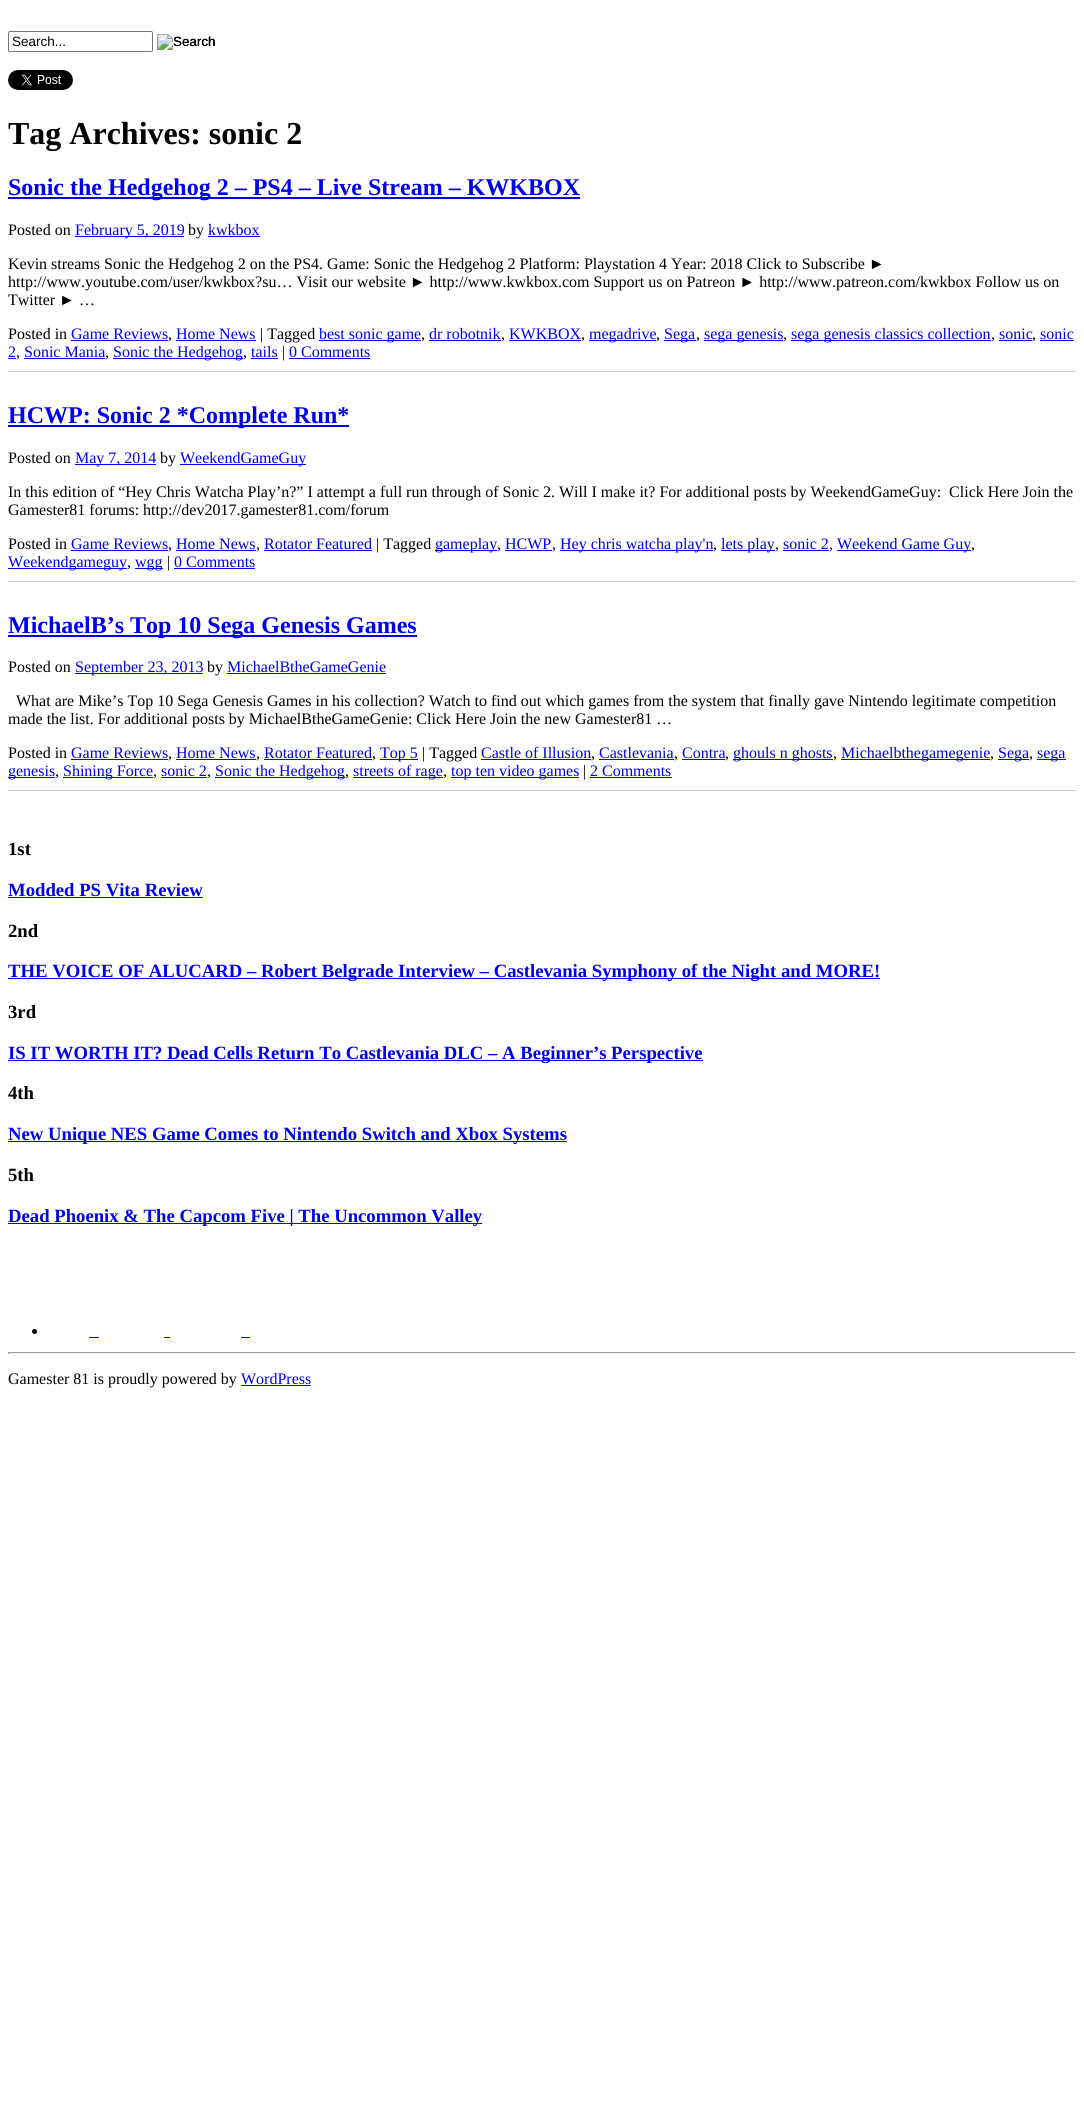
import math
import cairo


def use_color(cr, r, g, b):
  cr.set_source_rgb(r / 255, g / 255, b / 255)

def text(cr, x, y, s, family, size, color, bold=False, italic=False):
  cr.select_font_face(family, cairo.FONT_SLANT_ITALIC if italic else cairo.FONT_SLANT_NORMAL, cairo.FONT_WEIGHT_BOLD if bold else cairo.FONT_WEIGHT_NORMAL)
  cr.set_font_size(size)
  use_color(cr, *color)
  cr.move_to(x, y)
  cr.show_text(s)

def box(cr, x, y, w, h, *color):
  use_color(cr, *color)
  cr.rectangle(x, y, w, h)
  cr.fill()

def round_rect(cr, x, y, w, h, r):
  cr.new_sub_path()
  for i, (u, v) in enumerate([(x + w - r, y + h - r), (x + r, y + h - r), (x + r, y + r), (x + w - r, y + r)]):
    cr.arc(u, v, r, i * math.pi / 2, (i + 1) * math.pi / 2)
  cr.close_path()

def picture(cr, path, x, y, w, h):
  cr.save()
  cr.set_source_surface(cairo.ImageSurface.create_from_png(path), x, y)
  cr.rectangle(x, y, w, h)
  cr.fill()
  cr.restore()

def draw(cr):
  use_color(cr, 255, 255, 255)
  cr.paint()
  round_rect(cr, 8.5, 31.5, 144, 20, 1.5)
  use_color(cr, 118, 118, 118)
  cr.set_line_width(1)
  cr.stroke()
  picture(cr, "img_01.png", 157, 34, 58, 16)
  picture(cr, "img_02.png", 8, 70, 65, 20)
  box(cr, 8, 197, 572, 2, 0, 0, 238)
  box(cr, 75, 236, 109, 1, 0, 0, 238)
  box(cr, 208, 236, 52, 1, 0, 0, 238)
  box(cr, 71, 340, 97, 1, 0, 0, 238)
  box(cr, 176, 340, 80, 1, 0, 0, 238)
  box(cr, 319, 340, 102, 1, 0, 0, 238)
  box(cr, 429, 340, 72, 1, 0, 0, 238)
  box(cr, 509, 340, 72, 1, 0, 0, 238)
  box(cr, 589, 340, 67, 1, 0, 0, 238)
  box(cr, 664, 340, 32, 1, 0, 0, 238)
  box(cr, 704, 340, 79, 1, 0, 0, 238)
  box(cr, 791, 340, 200, 1, 0, 0, 238)
  box(cr, 999, 340, 33, 1, 0, 0, 238)
  box(cr, 1040, 340, 34, 1, 0, 0, 238)
  box(cr, 8, 358, 8, 1, 0, 0, 238)
  box(cr, 24, 358, 81, 1, 0, 0, 238)
  box(cr, 113, 358, 130, 1, 0, 0, 238)
  box(cr, 251, 358, 27, 1, 0, 0, 238)
  box(cr, 289, 358, 81, 1, 0, 0, 238)
  box(cr, 8, 371, 1068, 1, 205, 205, 205)
  box(cr, 8, 425, 341, 2, 0, 0, 238)
  box(cr, 75, 464, 81, 1, 0, 0, 238)
  box(cr, 180, 464, 126, 1, 0, 0, 238)
  box(cr, 71, 550, 97, 1, 0, 0, 238)
  box(cr, 176, 550, 80, 1, 0, 0, 238)
  box(cr, 264, 550, 108, 1, 0, 0, 238)
  box(cr, 435, 550, 62, 1, 0, 0, 238)
  box(cr, 505, 550, 47, 1, 0, 0, 238)
  box(cr, 560, 550, 153, 1, 0, 0, 238)
  box(cr, 721, 550, 54, 1, 0, 0, 238)
  box(cr, 783, 550, 46, 1, 0, 0, 238)
  box(cr, 837, 550, 134, 1, 0, 0, 238)
  box(cr, 8, 568, 119, 1, 0, 0, 238)
  box(cr, 135, 568, 28, 1, 0, 0, 238)
  box(cr, 174, 568, 81, 1, 0, 0, 238)
  box(cr, 8, 581, 1068, 1, 205, 205, 205)
  box(cr, 8, 635, 409, 2, 0, 0, 238)
  box(cr, 75, 673, 128, 1, 0, 0, 238)
  box(cr, 227, 673, 159, 1, 0, 0, 238)
  box(cr, 71, 759, 97, 1, 0, 0, 238)
  box(cr, 176, 759, 80, 1, 0, 0, 238)
  box(cr, 264, 759, 108, 1, 0, 0, 238)
  box(cr, 380, 759, 38, 1, 0, 0, 238)
  box(cr, 481, 759, 110, 1, 0, 0, 238)
  box(cr, 599, 759, 75, 1, 0, 0, 238)
  box(cr, 682, 759, 43, 1, 0, 0, 238)
  box(cr, 733, 759, 100, 1, 0, 0, 238)
  box(cr, 841, 759, 149, 1, 0, 0, 238)
  box(cr, 998, 759, 31, 1, 0, 0, 238)
  box(cr, 1037, 759, 29, 1, 0, 0, 238)
  box(cr, 8, 777, 47, 1, 0, 0, 238)
  box(cr, 63, 777, 90, 1, 0, 0, 238)
  box(cr, 161, 777, 46, 1, 0, 0, 238)
  box(cr, 215, 777, 130, 1, 0, 0, 238)
  box(cr, 353, 777, 90, 1, 0, 0, 238)
  box(cr, 451, 777, 128, 1, 0, 0, 238)
  box(cr, 590, 777, 82, 1, 0, 0, 238)
  box(cr, 8, 790, 1068, 1, 205, 205, 205)
  box(cr, 8, 897, 195, 1, 0, 0, 238)
  box(cr, 8, 978, 872, 1, 0, 0, 238)
  box(cr, 8, 1060, 695, 1, 0, 0, 238)
  box(cr, 8, 1141, 559, 1, 0, 0, 238)
  box(cr, 8, 1223, 474, 1, 0, 0, 238)
  use_color(cr, 0, 0, 0)
  cr.arc(34.5, 1331.5, 2.5, 0, 2 * math.pi)
  cr.fill()
  box(cr, 89, 1337, 10, 1, 0, 0, 238)
  box(cr, 164, 1337, 6, 1, 0, 0, 238)
  box(cr, 241, 1337, 9, 1, 0, 0, 238)
  box(cr, 8, 1352, 1068, 1, 159, 159, 159)
  box(cr, 1075, 1352, 1, 2, 238, 238, 238)
  box(cr, 8, 1353, 1068, 1, 238, 238, 238)
  box(cr, 8, 1352, 1, 2, 159, 159, 159)
  box(cr, 241, 1385, 70, 1, 0, 0, 238)
  text(cr, 12, 46, "Search...", "Liberation Sans", 13.5, (0, 0, 0))
  text(cr, 173, 46, "Search", "Liberation Sans", 13.5, (0, 0, 0))
  text(cr, 8, 144, "Tag Archives: sonic 2", "Liberation Serif", 32, (0, 0, 0), bold=True)
  text(cr, 8, 195, "Sonic the Hedgehog 2 – PS4 – Live Stream – KWKBOX", "Liberation Serif", 24, (0, 0, 238), bold=True)
  text(cr, 8, 235, "Posted on", "Liberation Serif", 16, (0, 0, 0))
  text(cr, 75, 235, "February 5, 2019", "Liberation Serif", 16, (0, 0, 238))
  text(cr, 188, 235, "by", "Liberation Serif", 16, (0, 0, 0))
  text(cr, 208, 235, "kwkbox", "Liberation Serif", 16, (0, 0, 238))
  text(cr, 8, 269, "Kevin streams Sonic the Hedgehog 2 on the PS4. Game: Sonic the Hedgehog 2 Platform: Playstation 4 Year: 2018 Click to Subscribe ►", "Liberation Serif", 16, (0, 0, 0))
  text(cr, 8, 287, "http://www.youtube.com/user/kwkbox?su… Visit our website ► http://www.kwkbox.com Support us on Patreon ► http://www.patreon.com/kwkbox Follow us on", "Liberation Serif", 16, (0, 0, 0))
  text(cr, 8, 305, "Twitter ► …", "Liberation Serif", 16, (0, 0, 0))
  text(cr, 8, 339, "Posted in", "Liberation Serif", 16, (0, 0, 0))
  text(cr, 71, 339, "Game Reviews", "Liberation Serif", 16, (0, 0, 238))
  text(cr, 168, 339, ",", "Liberation Serif", 16, (0, 0, 0))
  text(cr, 176, 339, "Home News", "Liberation Serif", 16, (0, 0, 238))
  text(cr, 260, 339, "| Tagged", "Liberation Serif", 16, (0, 0, 0))
  text(cr, 319, 339, "best sonic game", "Liberation Serif", 16, (0, 0, 238))
  text(cr, 421, 339, ",", "Liberation Serif", 16, (0, 0, 0))
  text(cr, 429, 339, "dr robotnik", "Liberation Serif", 16, (0, 0, 238))
  text(cr, 501, 339, ",", "Liberation Serif", 16, (0, 0, 0))
  text(cr, 509, 339, "KWKBOX", "Liberation Serif", 16, (0, 0, 238))
  text(cr, 581, 339, ",", "Liberation Serif", 16, (0, 0, 0))
  text(cr, 589, 339, "megadrive", "Liberation Serif", 16, (0, 0, 238))
  text(cr, 656, 339, ",", "Liberation Serif", 16, (0, 0, 0))
  text(cr, 664, 339, "Sega", "Liberation Serif", 16, (0, 0, 238))
  text(cr, 696, 339, ",", "Liberation Serif", 16, (0, 0, 0))
  text(cr, 704, 339, "sega genesis", "Liberation Serif", 16, (0, 0, 238))
  text(cr, 783, 339, ",", "Liberation Serif", 16, (0, 0, 0))
  text(cr, 791, 339, "sega genesis classics collection", "Liberation Serif", 16, (0, 0, 238))
  text(cr, 991, 339, ",", "Liberation Serif", 16, (0, 0, 0))
  text(cr, 999, 339, "sonic", "Liberation Serif", 16, (0, 0, 238))
  text(cr, 1032, 339, ",", "Liberation Serif", 16, (0, 0, 0))
  text(cr, 1040, 339, "sonic", "Liberation Serif", 16, (0, 0, 238))
  text(cr, 8, 357, "2", "Liberation Serif", 16, (0, 0, 238))
  text(cr, 16, 357, ",", "Liberation Serif", 16, (0, 0, 0))
  text(cr, 24, 357, "Sonic Mania", "Liberation Serif", 16, (0, 0, 238))
  text(cr, 105, 357, ",", "Liberation Serif", 16, (0, 0, 0))
  text(cr, 113, 357, "Sonic the Hedgehog", "Liberation Serif", 16, (0, 0, 238))
  text(cr, 243, 357, ",", "Liberation Serif", 16, (0, 0, 0))
  text(cr, 251, 357, "tails", "Liberation Serif", 16, (0, 0, 238))
  text(cr, 282, 357, "|", "Liberation Serif", 16, (0, 0, 0))
  text(cr, 289, 357, "0 Comments", "Liberation Serif", 16, (0, 0, 238))
  text(cr, 8, 423, "HCWP: Sonic 2 *Complete Run*", "Liberation Serif", 24, (0, 0, 238), bold=True)
  text(cr, 8, 463, "Posted on", "Liberation Serif", 16, (0, 0, 0))
  text(cr, 75, 463, "May 7, 2014", "Liberation Serif", 16, (0, 0, 238))
  text(cr, 160, 463, "by", "Liberation Serif", 16, (0, 0, 0))
  text(cr, 180, 463, "WeekendGameGuy", "Liberation Serif", 16, (0, 0, 238))
  text(cr, 8, 497, "In this edition of “Hey Chris Watcha Play’n?” I attempt a full run through of Sonic 2. Will I make it? For additional posts by WeekendGameGuy:  Click Here Join the", "Liberation Serif", 16, (0, 0, 0))
  text(cr, 8, 515, "Gamester81 forums: http://dev2017.gamester81.com/forum", "Liberation Serif", 16, (0, 0, 0))
  text(cr, 8, 549, "Posted in", "Liberation Serif", 16, (0, 0, 0))
  text(cr, 71, 549, "Game Reviews", "Liberation Serif", 16, (0, 0, 238))
  text(cr, 168, 549, ",", "Liberation Serif", 16, (0, 0, 0))
  text(cr, 176, 549, "Home News", "Liberation Serif", 16, (0, 0, 238))
  text(cr, 256, 549, ",", "Liberation Serif", 16, (0, 0, 0))
  text(cr, 264, 549, "Rotator Featured", "Liberation Serif", 16, (0, 0, 238))
  text(cr, 376, 549, "| Tagged", "Liberation Serif", 16, (0, 0, 0))
  text(cr, 435, 549, "gameplay", "Liberation Serif", 16, (0, 0, 238))
  text(cr, 497, 549, ",", "Liberation Serif", 16, (0, 0, 0))
  text(cr, 505, 549, "HCWP", "Liberation Serif", 16, (0, 0, 238))
  text(cr, 552, 549, ",", "Liberation Serif", 16, (0, 0, 0))
  text(cr, 560, 549, "Hey chris watcha play'n", "Liberation Serif", 16, (0, 0, 238))
  text(cr, 713, 549, ",", "Liberation Serif", 16, (0, 0, 0))
  text(cr, 721, 549, "lets play", "Liberation Serif", 16, (0, 0, 238))
  text(cr, 775, 549, ",", "Liberation Serif", 16, (0, 0, 0))
  text(cr, 783, 549, "sonic 2", "Liberation Serif", 16, (0, 0, 238))
  text(cr, 829, 549, ",", "Liberation Serif", 16, (0, 0, 0))
  text(cr, 837, 549, "Weekend Game Guy", "Liberation Serif", 16, (0, 0, 238))
  text(cr, 971, 549, ",", "Liberation Serif", 16, (0, 0, 0))
  text(cr, 8, 567, "Weekendgameguy", "Liberation Serif", 16, (0, 0, 238))
  text(cr, 127, 567, ",", "Liberation Serif", 16, (0, 0, 0))
  text(cr, 135, 567, "wgg", "Liberation Serif", 16, (0, 0, 238))
  text(cr, 167, 567, "|", "Liberation Serif", 16, (0, 0, 0))
  text(cr, 174, 567, "0 Comments", "Liberation Serif", 16, (0, 0, 238))
  text(cr, 8, 633, "MichaelB’s Top 10 Sega Genesis Games", "Liberation Serif", 24, (0, 0, 238), bold=True)
  text(cr, 8, 672, "Posted on", "Liberation Serif", 16, (0, 0, 0))
  text(cr, 75, 672, "September 23, 2013", "Liberation Serif", 16, (0, 0, 238))
  text(cr, 207, 672, "by", "Liberation Serif", 16, (0, 0, 0))
  text(cr, 227, 672, "MichaelBtheGameGenie", "Liberation Serif", 16, (0, 0, 238))
  text(cr, 16, 706, "What are Mike’s Top 10 Sega Genesis Games in his collection? Watch to find out which games from the system that finally gave Nintendo legitimate competition", "Liberation Serif", 16, (0, 0, 0))
  text(cr, 8, 724, "made the list. For additional posts by MichaelBtheGameGenie: Click Here Join the new Gamester81 …", "Liberation Serif", 16, (0, 0, 0))
  text(cr, 8, 758, "Posted in", "Liberation Serif", 16, (0, 0, 0))
  text(cr, 71, 758, "Game Reviews", "Liberation Serif", 16, (0, 0, 238))
  text(cr, 168, 758, ",", "Liberation Serif", 16, (0, 0, 0))
  text(cr, 176, 758, "Home News", "Liberation Serif", 16, (0, 0, 238))
  text(cr, 256, 758, ",", "Liberation Serif", 16, (0, 0, 0))
  text(cr, 264, 758, "Rotator Featured", "Liberation Serif", 16, (0, 0, 238))
  text(cr, 372, 758, ",", "Liberation Serif", 16, (0, 0, 0))
  text(cr, 380, 758, "Top 5", "Liberation Serif", 16, (0, 0, 238))
  text(cr, 422, 758, "| Tagged", "Liberation Serif", 16, (0, 0, 0))
  text(cr, 481, 758, "Castle of Illusion", "Liberation Serif", 16, (0, 0, 238))
  text(cr, 591, 758, ",", "Liberation Serif", 16, (0, 0, 0))
  text(cr, 599, 758, "Castlevania", "Liberation Serif", 16, (0, 0, 238))
  text(cr, 674, 758, ",", "Liberation Serif", 16, (0, 0, 0))
  text(cr, 682, 758, "Contra", "Liberation Serif", 16, (0, 0, 238))
  text(cr, 725, 758, ",", "Liberation Serif", 16, (0, 0, 0))
  text(cr, 733, 758, "ghouls n ghosts", "Liberation Serif", 16, (0, 0, 238))
  text(cr, 833, 758, ",", "Liberation Serif", 16, (0, 0, 0))
  text(cr, 841, 758, "Michaelbthegamegenie", "Liberation Serif", 16, (0, 0, 238))
  text(cr, 990, 758, ",", "Liberation Serif", 16, (0, 0, 0))
  text(cr, 998, 758, "Sega", "Liberation Serif", 16, (0, 0, 238))
  text(cr, 1029, 758, ",", "Liberation Serif", 16, (0, 0, 0))
  text(cr, 1037, 758, "sega", "Liberation Serif", 16, (0, 0, 238))
  text(cr, 8, 776, "genesis", "Liberation Serif", 16, (0, 0, 238))
  text(cr, 55, 776, ",", "Liberation Serif", 16, (0, 0, 0))
  text(cr, 63, 776, "Shining Force", "Liberation Serif", 16, (0, 0, 238))
  text(cr, 153, 776, ",", "Liberation Serif", 16, (0, 0, 0))
  text(cr, 161, 776, "sonic 2", "Liberation Serif", 16, (0, 0, 238))
  text(cr, 207, 776, ",", "Liberation Serif", 16, (0, 0, 0))
  text(cr, 215, 776, "Sonic the Hedgehog", "Liberation Serif", 16, (0, 0, 238))
  text(cr, 345, 776, ",", "Liberation Serif", 16, (0, 0, 0))
  text(cr, 353, 776, "streets of rage", "Liberation Serif", 16, (0, 0, 238))
  text(cr, 443, 776, ",", "Liberation Serif", 16, (0, 0, 0))
  text(cr, 451, 776, "top ten video games", "Liberation Serif", 16, (0, 0, 238))
  text(cr, 583, 776, "|", "Liberation Serif", 16, (0, 0, 0))
  text(cr, 590, 776, "2 Comments", "Liberation Serif", 16, (0, 0, 238))
  text(cr, 8, 855, "1st", "Liberation Serif", 18.7, (0, 0, 0), bold=True)
  text(cr, 8, 896, "Modded PS Vita Review", "Liberation Serif", 18.7, (0, 0, 238), bold=True)
  text(cr, 8, 937, "2nd", "Liberation Serif", 18.7, (0, 0, 0), bold=True)
  text(cr, 8, 977, "THE VOICE OF ALUCARD – Robert Belgrade Interview – Castlevania Symphony of the Night and MORE!", "Liberation Serif", 18.7, (0, 0, 238), bold=True)
  text(cr, 8, 1018, "3rd", "Liberation Serif", 18.7, (0, 0, 0), bold=True)
  text(cr, 8, 1059, "IS IT WORTH IT? Dead Cells Return To Castlevania DLC – A Beginner’s Perspective", "Liberation Serif", 18.7, (0, 0, 238), bold=True)
  text(cr, 8, 1099, "4th", "Liberation Serif", 18.7, (0, 0, 0), bold=True)
  text(cr, 8, 1140, "New Unique NES Game Comes to Nintendo Switch and Xbox Systems", "Liberation Serif", 18.7, (0, 0, 238), bold=True)
  text(cr, 8, 1181, "5th", "Liberation Serif", 18.7, (0, 0, 0), bold=True)
  text(cr, 8, 1222, "Dead Phoenix & The Capcom Five | The Uncommon Valley", "Liberation Serif", 18.7, (0, 0, 238), bold=True)
  text(cr, 8, 1384, "Gamester 81 is proudly powered by", "Liberation Serif", 16, (0, 0, 0))
  text(cr, 241, 1384, "WordPress", "Liberation Serif", 16, (0, 0, 238))


surface = cairo.ImageSurface(cairo.FORMAT_RGB24, 1084, 2101)
cr = cairo.Context(surface)
options = cairo.FontOptions()
options.set_hint_metrics(cairo.HINT_METRICS_OFF)
options.set_hint_style(cairo.HINT_STYLE_NONE)
cr.set_font_options(options)
cr.set_miter_limit(4)
draw(cr)
surface.write_to_png("out.png")
